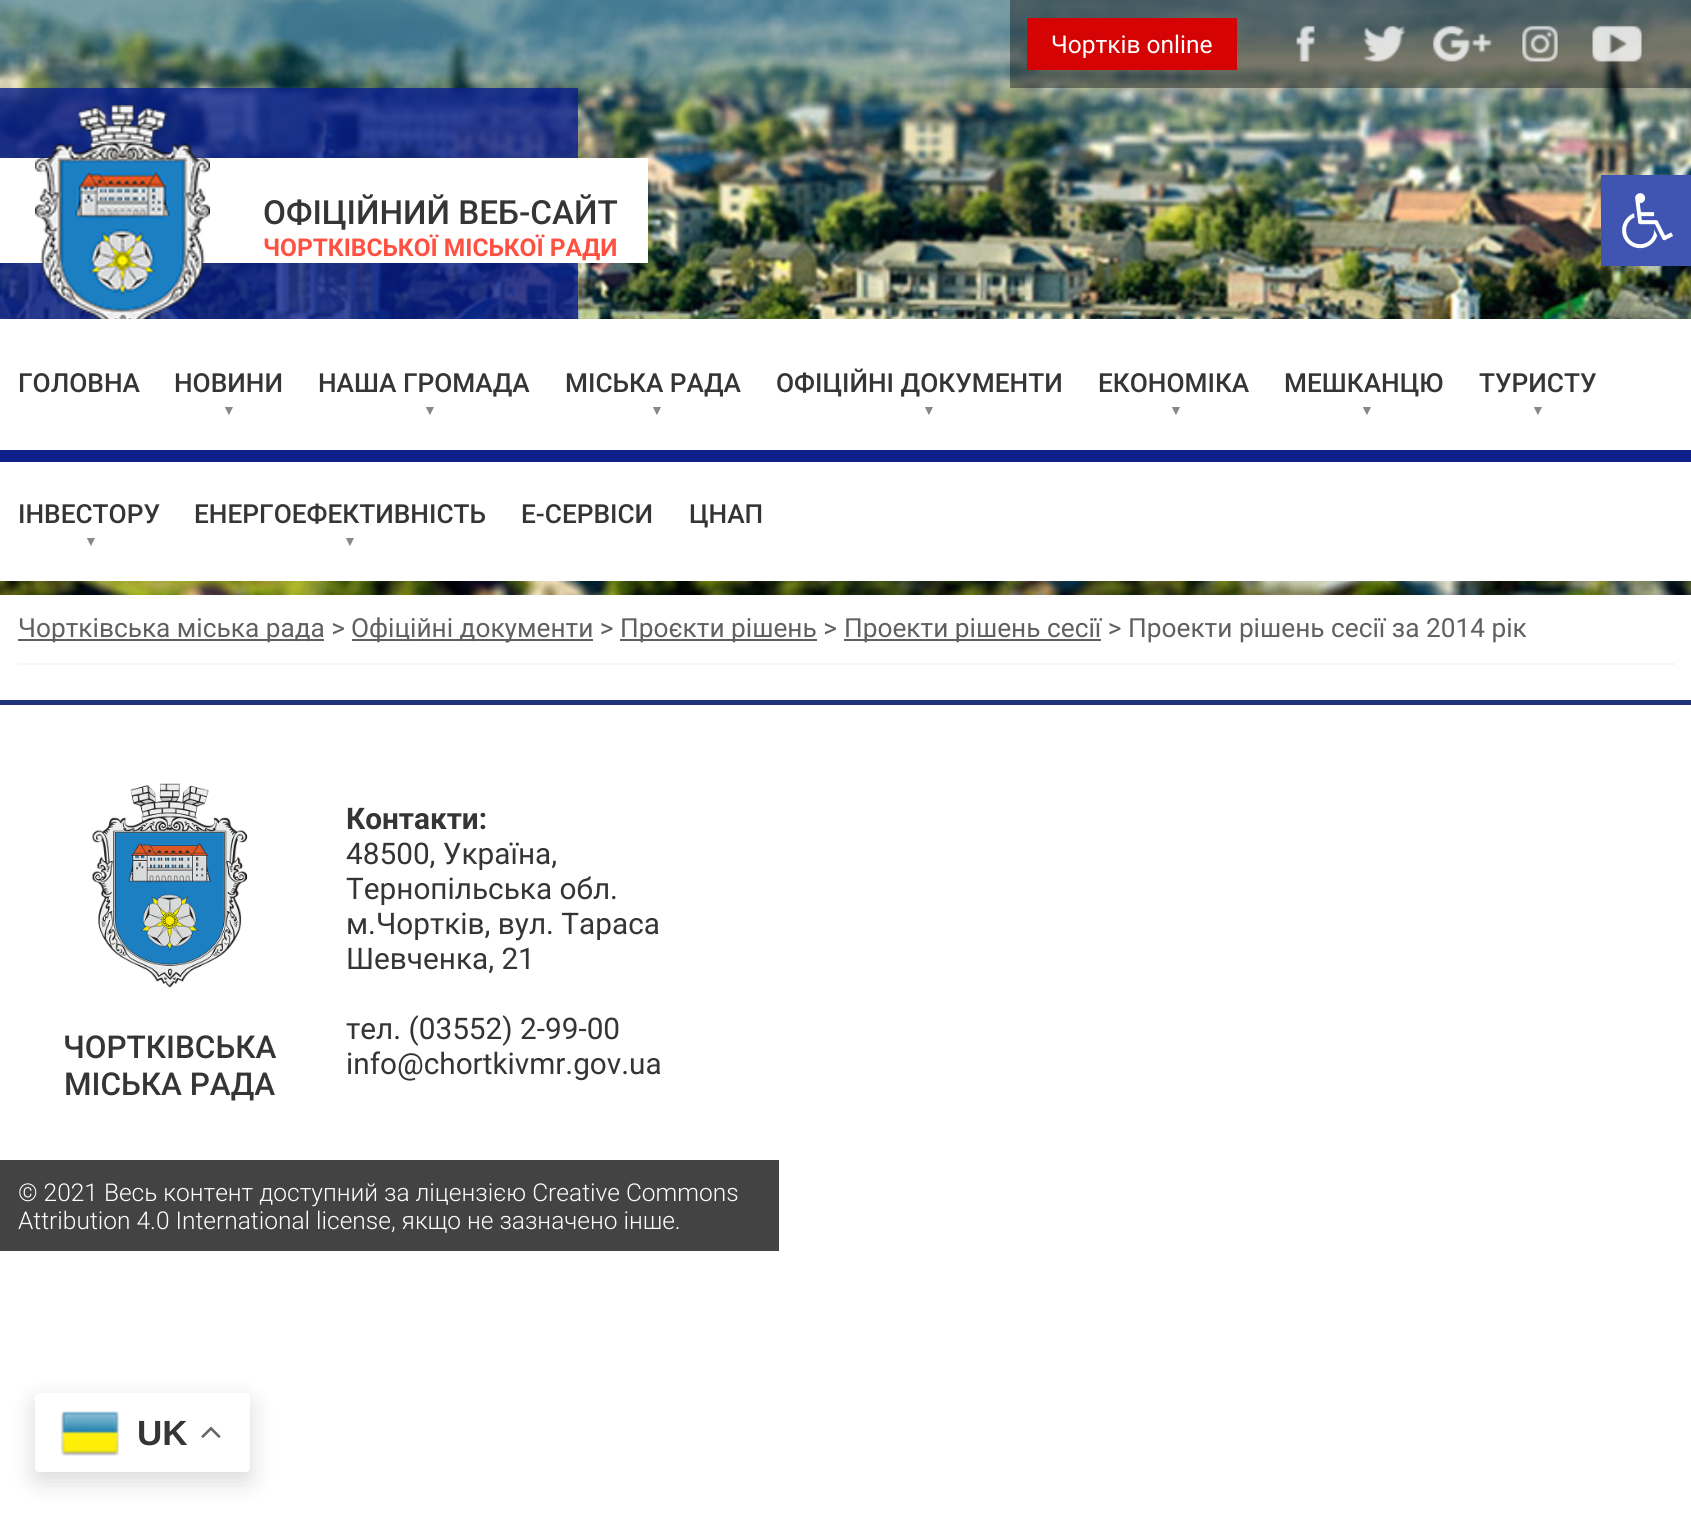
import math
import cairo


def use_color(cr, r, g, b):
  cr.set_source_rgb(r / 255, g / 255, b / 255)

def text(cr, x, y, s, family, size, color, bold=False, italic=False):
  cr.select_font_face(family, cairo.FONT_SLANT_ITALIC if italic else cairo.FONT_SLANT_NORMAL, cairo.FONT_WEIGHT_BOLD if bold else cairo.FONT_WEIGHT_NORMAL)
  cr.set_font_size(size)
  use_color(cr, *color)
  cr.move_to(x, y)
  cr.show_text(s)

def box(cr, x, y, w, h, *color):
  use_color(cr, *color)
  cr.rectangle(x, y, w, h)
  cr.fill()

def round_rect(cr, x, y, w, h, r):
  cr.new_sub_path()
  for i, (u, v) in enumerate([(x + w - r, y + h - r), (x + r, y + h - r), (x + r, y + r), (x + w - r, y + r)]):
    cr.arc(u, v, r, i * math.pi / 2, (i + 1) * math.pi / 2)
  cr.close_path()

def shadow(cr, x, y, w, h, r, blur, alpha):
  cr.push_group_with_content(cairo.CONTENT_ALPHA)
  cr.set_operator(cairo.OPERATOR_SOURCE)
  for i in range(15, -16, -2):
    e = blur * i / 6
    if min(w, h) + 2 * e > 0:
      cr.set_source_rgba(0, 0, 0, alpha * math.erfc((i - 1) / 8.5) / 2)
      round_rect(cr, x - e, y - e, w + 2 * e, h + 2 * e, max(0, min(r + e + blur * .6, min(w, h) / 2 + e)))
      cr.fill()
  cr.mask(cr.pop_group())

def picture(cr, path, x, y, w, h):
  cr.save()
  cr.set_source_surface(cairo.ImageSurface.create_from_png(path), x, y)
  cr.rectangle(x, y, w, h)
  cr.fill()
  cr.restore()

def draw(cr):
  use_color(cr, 255, 255, 255)
  cr.paint()
  picture(cr, "img_01.png", 0, 0, 1691, 595)
  cr.set_source_rgba(0, 0, 0, 0.4)
  cr.rectangle(1010, 0, 681, 88)
  cr.fill()
  box(cr, 1027, 18, 210, 52, 213, 3, 3)
  picture(cr, "img_02.png", 1296, 25, 19, 37)
  picture(cr, "img_03.png", 1363, 25, 43, 37)
  picture(cr, "img_04.png", 1432, 25, 60, 37)
  picture(cr, "img_05.png", 1522, 25, 36, 37)
  picture(cr, "img_06.png", 1592, 25, 50, 37)
  cr.set_source_rgba(0.039, 0.118, 0.549, 0.8)
  cr.rectangle(0, 88, 578, 231)
  cr.fill()
  box(cr, 0, 158, 648, 105, 255, 255, 255)
  picture(cr, "img_07.png", 35, 105, 175, 214)
  box(cr, 0, 319, 1691, 262, 255, 255, 255)
  box(cr, 0, 450, 1691, 12, 14, 33, 139)
  use_color(cr, 0, 0, 0)
  shadow(cr, 1601, 175, 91, 91, 0, 9, 0.1)
  box(cr, 1601, 175, 90, 91, 64, 84, 178)
  picture(cr, "img_08.png", 1622, 193, 51, 56)
  box(cr, 18, 663, 1657, 2, 246, 246, 246)
  box(cr, 18, 639, 306, 2, 96, 96, 96)
  box(cr, 352, 639, 241, 2, 96, 96, 96)
  box(cr, 620, 639, 197, 2, 96, 96, 96)
  box(cr, 844, 639, 257, 2, 96, 96, 96)
  box(cr, 0, 700, 1691, 5, 32, 50, 120)
  picture(cr, "img_09.png", 92, 783, 156, 205)
  box(cr, 0, 1160, 779, 91, 67, 67, 67)
  use_color(cr, 0, 0, 0)
  shadow(cr, 35, 1402, 215, 79, 4, 13, 0.15)
  use_color(cr, 255, 255, 255)
  round_rect(cr, 35, 1393, 215, 79, 4)
  cr.fill()
  picture(cr, "img_10.png", 61, 1411, 58, 45)
  picture(cr, "img_11.png", 201, 1426, 20, 12)
  text(cr, 1051, 53, "Чортків online", "Roboto", 24.5, (255, 255, 255))
  text(cr, 263, 224, "ОФІЦІЙНИЙ ВЕБ-САЙТ", "Roboto Medium", 33.25, (53, 53, 53))
  text(cr, 263, 256, "ЧОРТКІВСЬКОЇ МІСЬКОЇ РАДИ", "Roboto", 24.5, (255, 81, 66), bold=True)
  text(cr, 18, 392, "ГОЛОВНА", "Roboto Medium", 26.25, (53, 53, 53))
  text(cr, 174, 392, "НОВИНИ", "Roboto Medium", 26.25, (53, 53, 53))
  text(cr, 222, 415, "▼", "Liberation Sans", 14, (136, 136, 136))
  text(cr, 318, 392, "НАША ГРОМАДА", "Roboto Medium", 26.25, (53, 53, 53))
  text(cr, 423, 415, "▼", "Liberation Sans", 14, (136, 136, 136))
  text(cr, 565, 392, "МІСЬКА РАДА", "Roboto Medium", 26.25, (53, 53, 53))
  text(cr, 650, 415, "▼", "Liberation Sans", 14, (136, 136, 136))
  text(cr, 776, 392, "ОФІЦІЙНІ ДОКУМЕНТИ", "Roboto Medium", 26.25, (53, 53, 53))
  text(cr, 922, 415, "▼", "Liberation Sans", 14, (136, 136, 136))
  text(cr, 1098, 392, "ЕКОНОМІКА", "Roboto Medium", 26.25, (53, 53, 53))
  text(cr, 1169, 415, "▼", "Liberation Sans", 14, (136, 136, 136))
  text(cr, 1284, 392, "МЕШКАНЦЮ", "Roboto Medium", 26.25, (53, 53, 53))
  text(cr, 1360, 415, "▼", "Liberation Sans", 14, (136, 136, 136))
  text(cr, 1479, 392, "ТУРИСТУ", "Roboto Medium", 26.25, (53, 53, 53))
  text(cr, 1531, 415, "▼", "Liberation Sans", 14, (136, 136, 136))
  text(cr, 18, 523, "ІНВЕСТОРУ", "Roboto Medium", 26.25, (53, 53, 53))
  text(cr, 84, 546, "▼", "Liberation Sans", 14, (136, 136, 136))
  text(cr, 194, 523, "ЕНЕРГОЕФЕКТИВНІСТЬ", "Roboto Medium", 26.25, (53, 53, 53))
  text(cr, 343, 546, "▼", "Liberation Sans", 14, (136, 136, 136))
  text(cr, 521, 523, "Е-СЕРВІСИ", "Roboto Medium", 26.25, (53, 53, 53))
  text(cr, 689, 523, "ЦНАП", "Roboto Medium", 26.25, (53, 53, 53))
  text(cr, 18, 637, "Чортківська міська рада >", "Roboto", 26.25, (96, 96, 96))
  text(cr, 351, 637, "Офіційні документи >", "Roboto", 26.25, (96, 96, 96))
  text(cr, 620, 637, "Проєкти рішень >", "Roboto", 26.25, (96, 96, 96))
  text(cr, 844, 637, "Проекти рішень сесії > Проекти рішень сесії за 2014 рік", "Roboto", 26.25, (96, 96, 96))
  text(cr, 63, 1058, "ЧОРТКІВСЬКА", "Roboto Medium", 31.5, (53, 53, 53))
  text(cr, 64, 1095, "МІСЬКА РАДА", "Roboto Medium", 31.5, (53, 53, 53))
  text(cr, 346, 829, "Контакти:", "Roboto", 29.75, (53, 53, 53), bold=True)
  text(cr, 346, 864, "48500, Україна,", "Roboto", 29.75, (53, 53, 53))
  text(cr, 346, 899, "Тернопільська обл.", "Roboto", 29.75, (53, 53, 53))
  text(cr, 346, 934, "м.Чортків, вул. Тараса", "Roboto", 29.75, (53, 53, 53))
  text(cr, 346, 969, "Шевченка, 21", "Roboto", 29.75, (53, 53, 53))
  text(cr, 346, 1039, "тел. (03552) 2-99-00", "Roboto", 29.75, (53, 53, 53))
  text(cr, 346, 1074, "info@chortkivmr.gov.ua", "Roboto", 29.75, (53, 53, 53))
  text(cr, 18, 1201, "© 2021 Весь контент доступний за ліцензією Creative Commons", "Roboto Light", 24.5, (255, 255, 255))
  text(cr, 18, 1229, "Attribution 4.0 International license, якщо не зазначено інше.", "Roboto Light", 24.5, (255, 255, 255))
  text(cr, 137, 1445, "UK", "Liberation Sans", 35, (53, 53, 53), bold=True)


surface = cairo.ImageSurface(cairo.FORMAT_RGB24, 1691, 1513)
cr = cairo.Context(surface)
options = cairo.FontOptions()
options.set_hint_metrics(cairo.HINT_METRICS_OFF)
options.set_hint_style(cairo.HINT_STYLE_NONE)
cr.set_font_options(options)
cr.set_miter_limit(4)
draw(cr)
surface.write_to_png("out.png")
